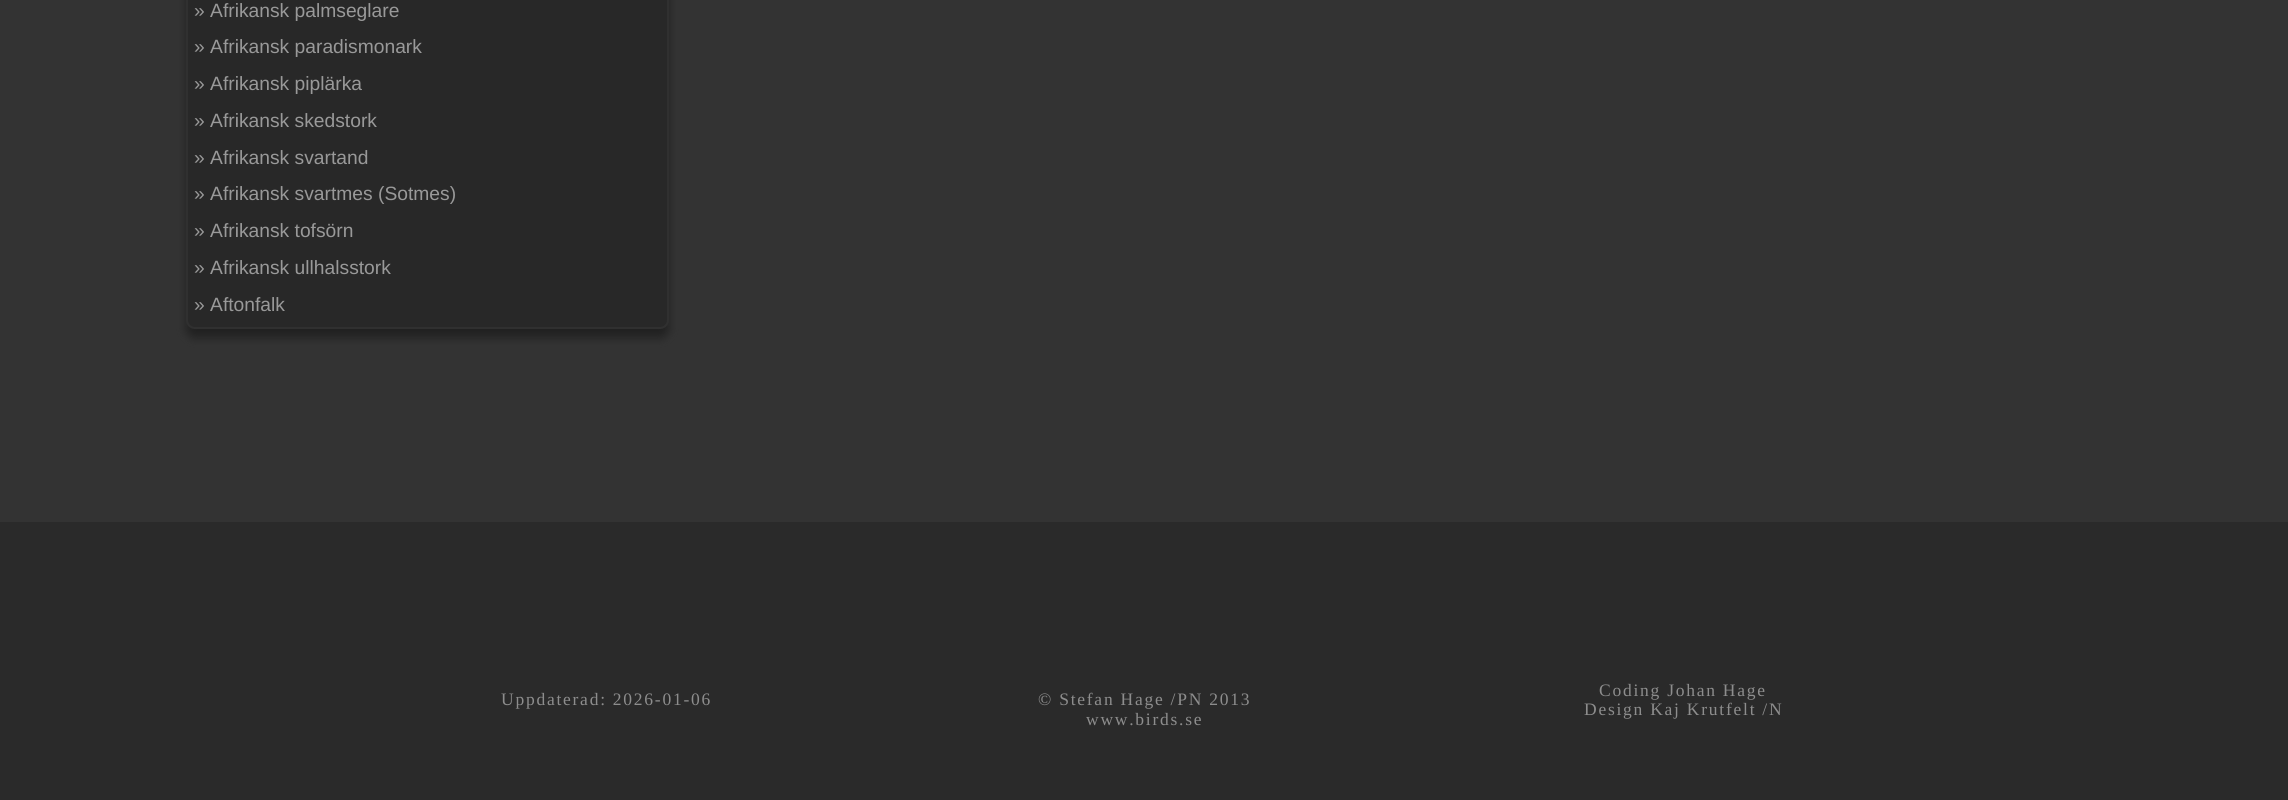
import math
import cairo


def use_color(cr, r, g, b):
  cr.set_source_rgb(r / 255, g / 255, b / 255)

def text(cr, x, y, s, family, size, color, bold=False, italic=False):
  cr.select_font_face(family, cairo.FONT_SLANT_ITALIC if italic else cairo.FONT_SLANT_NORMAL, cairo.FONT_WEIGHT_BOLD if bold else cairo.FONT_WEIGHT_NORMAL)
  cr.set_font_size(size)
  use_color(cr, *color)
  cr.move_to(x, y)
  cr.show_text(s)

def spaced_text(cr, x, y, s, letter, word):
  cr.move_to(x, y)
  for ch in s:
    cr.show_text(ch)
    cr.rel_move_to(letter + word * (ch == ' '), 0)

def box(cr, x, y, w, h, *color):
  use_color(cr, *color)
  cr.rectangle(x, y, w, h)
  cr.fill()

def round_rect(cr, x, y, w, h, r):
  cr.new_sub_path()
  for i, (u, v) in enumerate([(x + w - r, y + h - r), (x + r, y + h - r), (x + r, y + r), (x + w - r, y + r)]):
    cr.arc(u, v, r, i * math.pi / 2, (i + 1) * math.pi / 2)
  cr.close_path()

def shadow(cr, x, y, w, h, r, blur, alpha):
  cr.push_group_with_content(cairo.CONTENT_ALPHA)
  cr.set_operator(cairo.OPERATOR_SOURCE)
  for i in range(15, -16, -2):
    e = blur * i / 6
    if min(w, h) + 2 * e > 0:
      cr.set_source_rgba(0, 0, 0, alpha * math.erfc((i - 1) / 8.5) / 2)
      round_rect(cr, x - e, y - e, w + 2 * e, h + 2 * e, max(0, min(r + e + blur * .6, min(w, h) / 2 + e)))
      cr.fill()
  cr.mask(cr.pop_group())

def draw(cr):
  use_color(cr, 51, 51, 51)
  cr.paint()
  use_color(cr, 33, 33, 33)
  shadow(cr, 186, -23, 483, 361, 9, 4.5, 1)
  use_color(cr, 40, 40, 40)
  round_rect(cr, 187, -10, 481, 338, 8)
  cr.fill_preserve()
  use_color(cr, 48, 48, 48)
  cr.stroke()
  box(cr, 0, 522, 2288, 278, 42, 42, 42)
  text(cr, 194, 17, "» Afrikansk palmseglare", "Liberation Sans", 19.25, (153, 153, 153))
  text(cr, 194, 53, "» Afrikansk paradismonark", "Liberation Sans", 19.25, (153, 153, 153))
  text(cr, 194, 90, "» Afrikansk piplärka", "Liberation Sans", 19.25, (153, 153, 153))
  text(cr, 194, 127, "» Afrikansk skedstork", "Liberation Sans", 19.25, (153, 153, 153))
  text(cr, 194, 164, "» Afrikansk svartand", "Liberation Sans", 19.25, (153, 153, 153))
  text(cr, 194, 200, "» Afrikansk svartmes (Sotmes)", "Liberation Sans", 19.25, (153, 153, 153))
  text(cr, 194, 237, "» Afrikansk tofsörn", "Liberation Sans", 19.25, (153, 153, 153))
  text(cr, 194, 274, "» Afrikansk ullhalsstork", "Liberation Sans", 19.25, (153, 153, 153))
  text(cr, 194, 311, "» Aftonfalk", "Liberation Sans", 19.25, (153, 153, 153))
  cr.select_font_face("Liberation Serif")
  cr.set_font_size(17.5)
  use_color(cr, 141, 141, 141)
  spaced_text(cr, 501, 705, "Uppdaterad: 2026-01-06", 1.75, 0)
  spaced_text(cr, 1038, 705, "© Stefan Hage /PN 2013", 1.75, 0)
  spaced_text(cr, 1086, 725, "www.birds.se", 1.75, 0)
  spaced_text(cr, 1599, 696, "Coding Johan Hage", 1.75, 0)
  spaced_text(cr, 1584, 715, "Design Kaj Krutfelt /N", 1.75, 0)


surface = cairo.ImageSurface(cairo.FORMAT_RGB24, 2288, 800)
cr = cairo.Context(surface)
options = cairo.FontOptions()
options.set_hint_metrics(cairo.HINT_METRICS_OFF)
options.set_hint_style(cairo.HINT_STYLE_NONE)
cr.set_font_options(options)
cr.set_miter_limit(4)
draw(cr)
surface.write_to_png("out.png")
